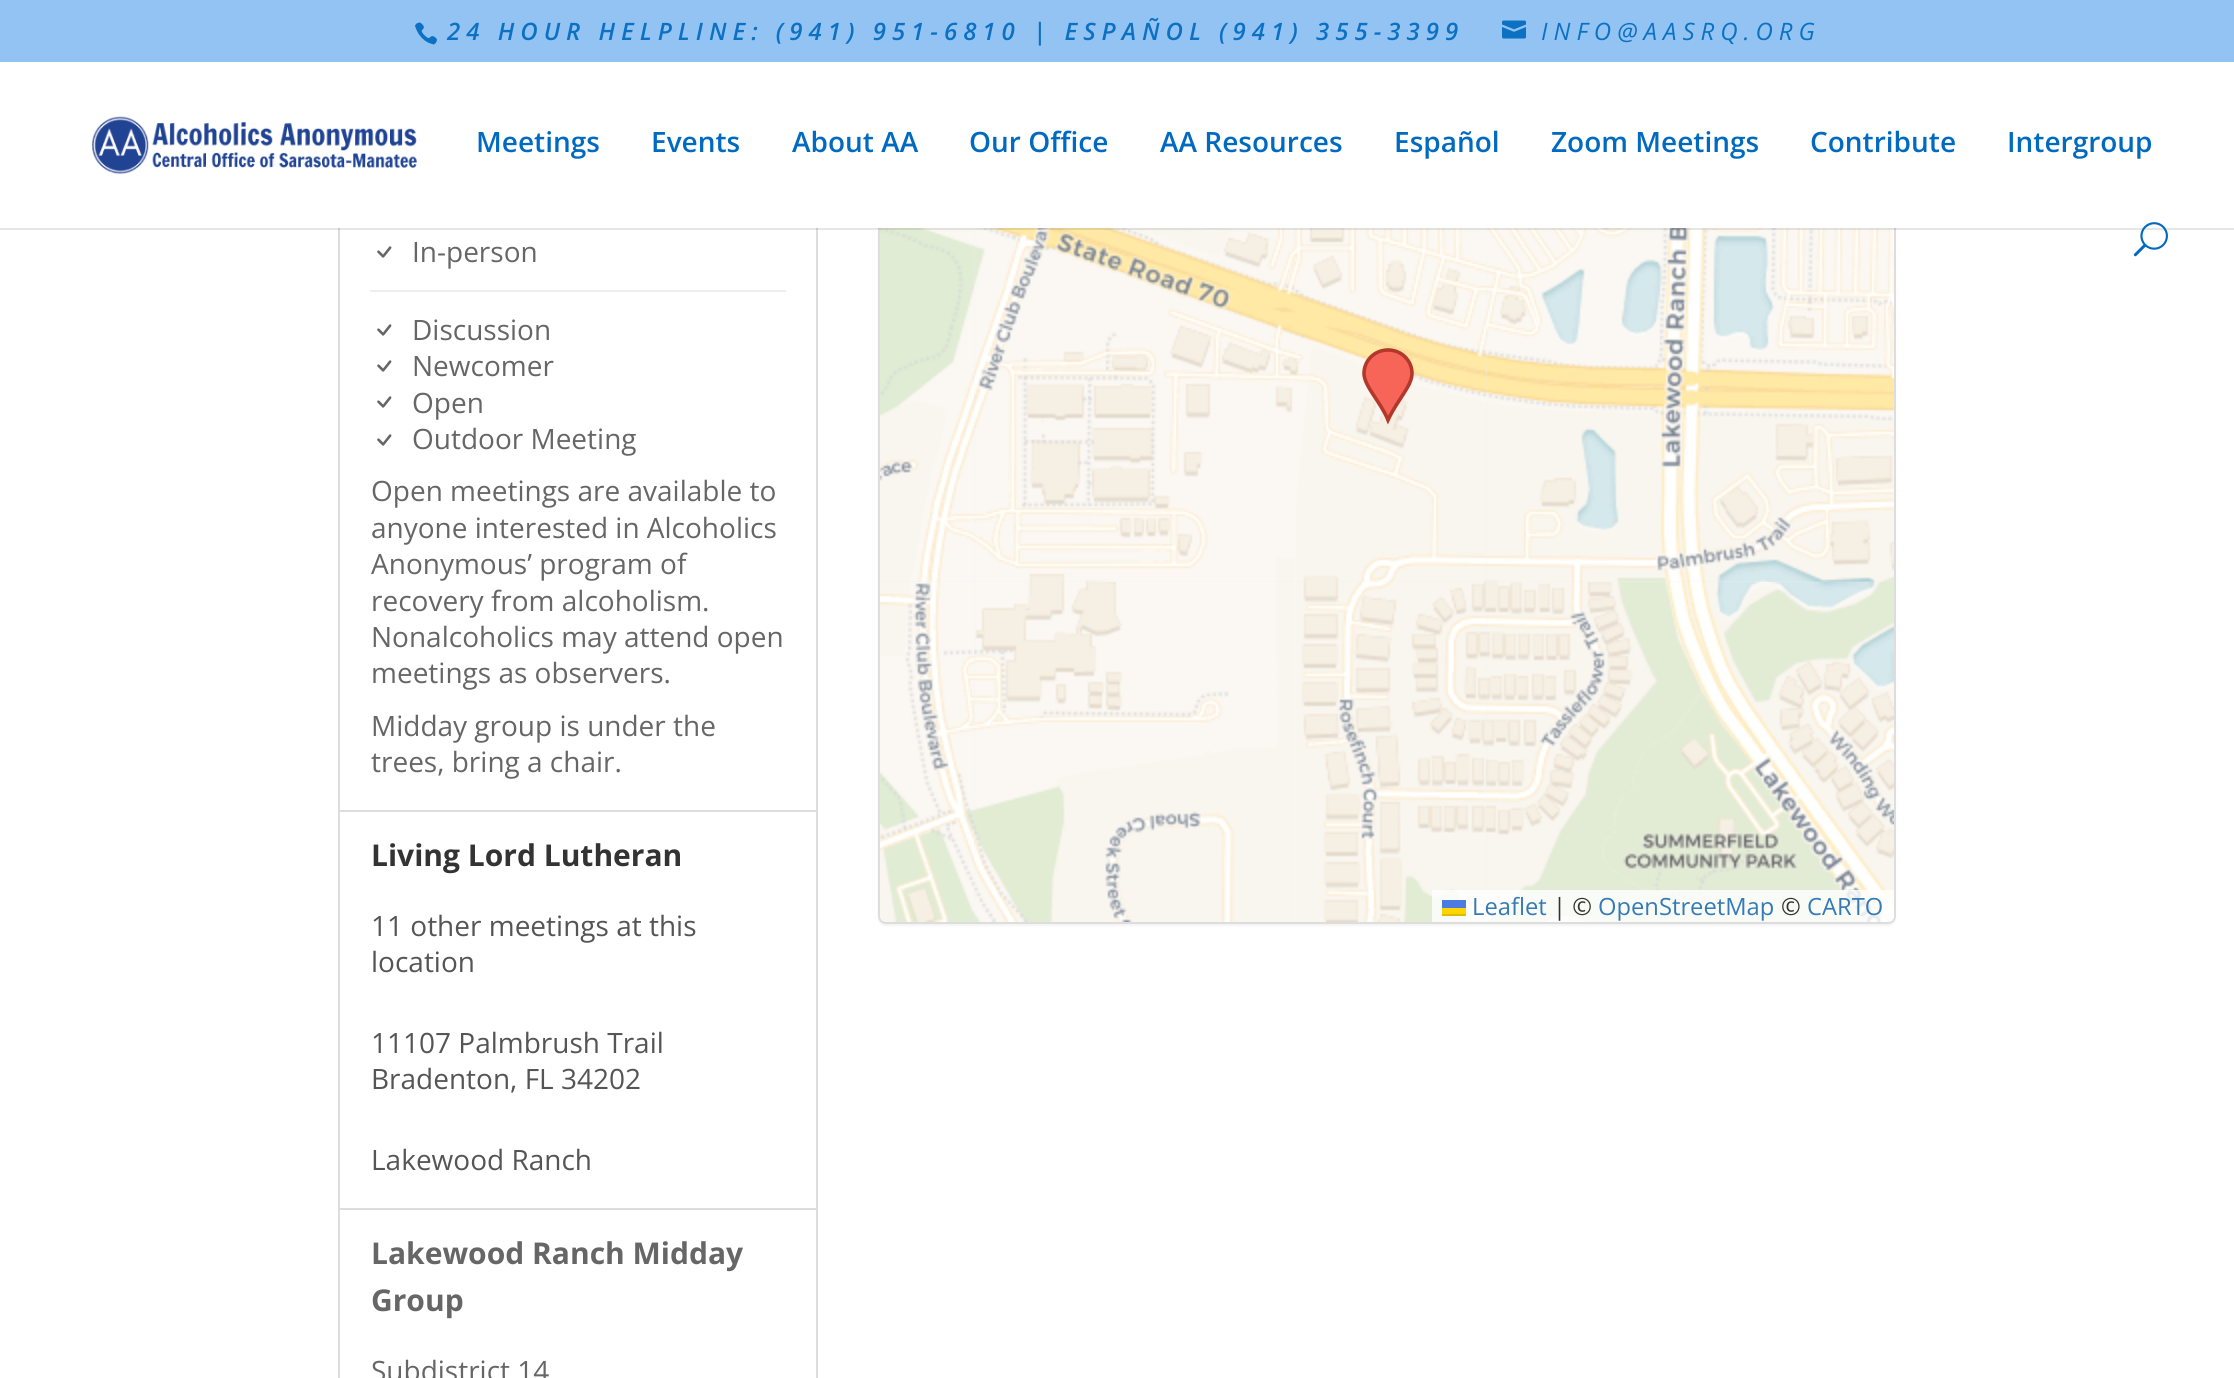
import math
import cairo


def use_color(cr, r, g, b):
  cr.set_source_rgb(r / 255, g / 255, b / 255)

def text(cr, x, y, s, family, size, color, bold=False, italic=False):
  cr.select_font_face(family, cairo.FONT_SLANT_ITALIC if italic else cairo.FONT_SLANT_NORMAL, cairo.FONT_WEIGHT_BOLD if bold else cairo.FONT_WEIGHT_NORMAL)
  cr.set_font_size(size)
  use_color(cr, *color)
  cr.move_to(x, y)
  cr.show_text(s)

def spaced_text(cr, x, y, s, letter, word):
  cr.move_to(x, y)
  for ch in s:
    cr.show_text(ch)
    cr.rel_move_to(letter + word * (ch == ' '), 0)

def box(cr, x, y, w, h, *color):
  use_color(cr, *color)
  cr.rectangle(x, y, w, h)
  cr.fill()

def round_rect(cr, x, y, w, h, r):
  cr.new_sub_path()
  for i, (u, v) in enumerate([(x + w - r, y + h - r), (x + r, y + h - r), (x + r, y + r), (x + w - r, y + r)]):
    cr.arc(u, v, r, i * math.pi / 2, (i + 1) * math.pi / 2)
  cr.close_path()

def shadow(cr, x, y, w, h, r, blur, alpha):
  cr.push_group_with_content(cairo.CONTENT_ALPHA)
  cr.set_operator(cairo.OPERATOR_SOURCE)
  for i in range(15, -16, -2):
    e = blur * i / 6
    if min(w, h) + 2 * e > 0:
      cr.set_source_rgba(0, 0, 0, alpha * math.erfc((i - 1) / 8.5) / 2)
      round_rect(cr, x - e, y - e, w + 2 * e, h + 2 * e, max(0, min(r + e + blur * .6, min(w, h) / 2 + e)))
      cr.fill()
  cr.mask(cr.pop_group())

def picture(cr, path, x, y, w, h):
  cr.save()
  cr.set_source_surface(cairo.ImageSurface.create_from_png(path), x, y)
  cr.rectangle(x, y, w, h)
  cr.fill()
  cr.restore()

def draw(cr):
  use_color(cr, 255, 255, 255)
  cr.paint()
  cr.rectangle(339, 57, 478, 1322)
  use_color(cr, 221, 221, 221)
  cr.stroke()
  use_color(cr, 0, 0, 0)
  shadow(cr, 878, -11, 1018, 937, 8, 1, 0.05)
  use_color(cr, 238, 238, 238)
  round_rect(cr, 879, -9, 1016, 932, 7)
  cr.fill_preserve()
  use_color(cr, 221, 221, 221)
  cr.stroke()
  box(cr, 0, 0, 2234, 62, 147, 195, 242)
  picture(cr, "img_01.png", 415, 22, 22, 23)
  picture(cr, "img_02.png", 1502, 20, 24, 19)
  picture(cr, "img_07.png", 973, 228, 513, 355)
  picture(cr, "img_06.png", 880, 228, 94, 354)
  picture(cr, "img_08.png", 1485, 228, 409, 355)
  cr.set_source_rgba(0, 0, 0, 0.1)
  cr.rectangle(0, 228, 2234, 2)
  cr.fill()
  box(cr, 338, 62, 1559, 166, 255, 255, 255)
  picture(cr, "img_03.png", 91, 116, 326, 59)
  picture(cr, "img_04.png", 2133, 222, 35, 35)
  box(cr, 340, 810, 476, 2, 221, 221, 221)
  picture(cr, "img_05.png", 377, 246, 15, 12)
  box(cr, 370, 290, 416, 2, 238, 238, 238)
  picture(cr, "img_05.png", 377, 324, 15, 12)
  picture(cr, "img_05.png", 377, 360, 15, 12)
  picture(cr, "img_05.png", 377, 396, 15, 12)
  picture(cr, "img_05.png", 377, 434, 15, 12)
  box(cr, 340, 1208, 476, 2, 221, 221, 221)
  picture(cr, "img_09.png", 880, 582, 94, 340)
  picture(cr, "img_10.png", 974, 582, 512, 340)
  picture(cr, "img_11.png", 1485, 582, 409, 340)
  use_color(cr, 247, 100, 88)
  cr.new_path()
  cr.move_to(1388, 350)
  cr.curve_to(1401, 350, 1412, 360, 1412, 373)
  cr.curve_to(1412, 386, 1398, 400, 1388, 420)
  cr.curve_to(1381, 403, 1364, 386, 1364, 373)
  cr.curve_to(1364, 360, 1375, 350, 1388, 350)
  cr.close_path()
  cr.fill()
  cr.new_path()
  cr.move_to(1388, 350)
  cr.curve_to(1401.5, 350, 1412, 360.5, 1412, 373.5)
  cr.curve_to(1412, 386, 1397.5, 399.5, 1388, 420)
  cr.curve_to(1381, 402.5, 1364, 386, 1364, 373.5)
  cr.curve_to(1364, 360.5, 1374.5, 350, 1388, 350)
  cr.close_path()
  use_color(cr, 179, 56, 44)
  cr.set_line_width(3.6)
  cr.stroke()
  cr.set_source_rgba(1, 1, 1, 0.8)
  cr.new_path()
  cr.move_to(1432, 890)
  cr.line_to(1894, 890)
  cr.line_to(1894, 916)
  cr.curve_to(1894, 919.5, 1891.5, 922, 1888, 922)
  cr.line_to(1432, 922)
  cr.close_path()
  cr.fill()
  box(cr, 1442, 900, 24, 8, 76, 123, 225)
  box(cr, 1442, 908, 24, 6, 255, 213, 0)
  box(cr, 1442, 914, 24, 2, 224, 188, 0)
  cr.select_font_face("Open Sans SemiBold", cairo.FONT_SLANT_ITALIC)
  cr.set_font_size(24)
  use_color(cr, 12, 113, 195)
  spaced_text(cr, 447, 40, "24 HOUR HELPLINE: (941) 951-6810 | ESPAÑOL (941) 355-3399", 6, 0)
  cr.select_font_face("Open Sans", cairo.FONT_SLANT_ITALIC)
  spaced_text(cr, 1541, 40, "INFO@AASRQ.ORG", 6, 0)
  text(cr, 476, 152, "Meetings", "Open Sans SemiBold", 28, (0, 106, 193))
  text(cr, 651, 152, "Events", "Open Sans SemiBold", 28, (0, 106, 193))
  text(cr, 792, 152, "About AA", "Open Sans SemiBold", 28, (0, 106, 193))
  text(cr, 969, 152, "Our Office", "Open Sans SemiBold", 28, (0, 106, 193))
  text(cr, 1160, 152, "AA Resources", "Open Sans SemiBold", 28, (0, 106, 193))
  text(cr, 1394, 152, "Español", "Open Sans SemiBold", 28, (0, 106, 193))
  text(cr, 1551, 152, "Zoom Meetings", "Open Sans SemiBold", 28, (0, 106, 193))
  text(cr, 1810, 152, "Contribute", "Open Sans SemiBold", 28, (0, 106, 193))
  text(cr, 2007, 152, "Intergroup", "Open Sans SemiBold", 28, (0, 106, 193))
  text(cr, 412, 262, "In-person", "Open Sans", 28, (102, 102, 102))
  text(cr, 412, 340, "Discussion", "Open Sans", 28, (102, 102, 102))
  text(cr, 412, 376, "Newcomer", "Open Sans", 28, (102, 102, 102))
  text(cr, 412, 413, "Open", "Open Sans", 28, (102, 102, 102))
  text(cr, 412, 449, "Outdoor Meeting", "Open Sans", 28, (102, 102, 102))
  text(cr, 371, 501, "Open meetings are available to", "Open Sans", 28, (102, 102, 102))
  text(cr, 371, 538, "anyone interested in Alcoholics", "Open Sans", 28, (102, 102, 102))
  text(cr, 371, 574, "Anonymous’ program of", "Open Sans", 28, (102, 102, 102))
  text(cr, 371, 611, "recovery from alcoholism.", "Open Sans", 28, (102, 102, 102))
  text(cr, 371, 647, "Nonalcoholics may attend open", "Open Sans", 28, (102, 102, 102))
  text(cr, 371, 683, "meetings as observers.", "Open Sans", 28, (102, 102, 102))
  text(cr, 371, 736, "Midday group is under the", "Open Sans", 28, (102, 102, 102))
  text(cr, 371, 772, "trees, bring a chair.", "Open Sans", 28, (102, 102, 102))
  text(cr, 371, 866, "Living Lord Lutheran", "Open Sans", 30, (51, 51, 51), bold=True)
  text(cr, 371, 936, "11 other meetings at this", "Open Sans", 28, (85, 85, 85))
  text(cr, 371, 972, "location", "Open Sans", 28, (85, 85, 85))
  text(cr, 371, 1053, "11107 Palmbrush Trail", "Open Sans", 28, (85, 85, 85))
  text(cr, 371, 1089, "Bradenton, FL 34202", "Open Sans", 28, (85, 85, 85))
  text(cr, 371, 1170, "Lakewood Ranch", "Open Sans", 28, (85, 85, 85))
  text(cr, 371, 1264, "Lakewood Ranch Midday", "Open Sans", 30, (102, 102, 102), bold=True)
  text(cr, 371, 1311, "Group", "Open Sans", 30, (102, 102, 102), bold=True)
  text(cr, 371, 1381, "Subdistrict 14", "Open Sans", 28, (102, 102, 102))
  text(cr, 1472, 915, "Leaflet", "Open Sans", 23.75, (51, 122, 183))
  text(cr, 1553, 915, "| ©", "Open Sans", 23.75, (51, 51, 51))
  text(cr, 1598, 915, "OpenStreetMap", "Open Sans", 23.75, (51, 122, 183))
  text(cr, 1781, 915, "©", "Open Sans", 23.75, (51, 51, 51))
  text(cr, 1807, 915, "CARTO", "Open Sans", 23.75, (51, 122, 183))


surface = cairo.ImageSurface(cairo.FORMAT_RGB24, 2234, 1378)
cr = cairo.Context(surface)
options = cairo.FontOptions()
options.set_hint_metrics(cairo.HINT_METRICS_OFF)
options.set_hint_style(cairo.HINT_STYLE_NONE)
cr.set_font_options(options)
cr.set_miter_limit(4)
draw(cr)
surface.write_to_png("out.png")
